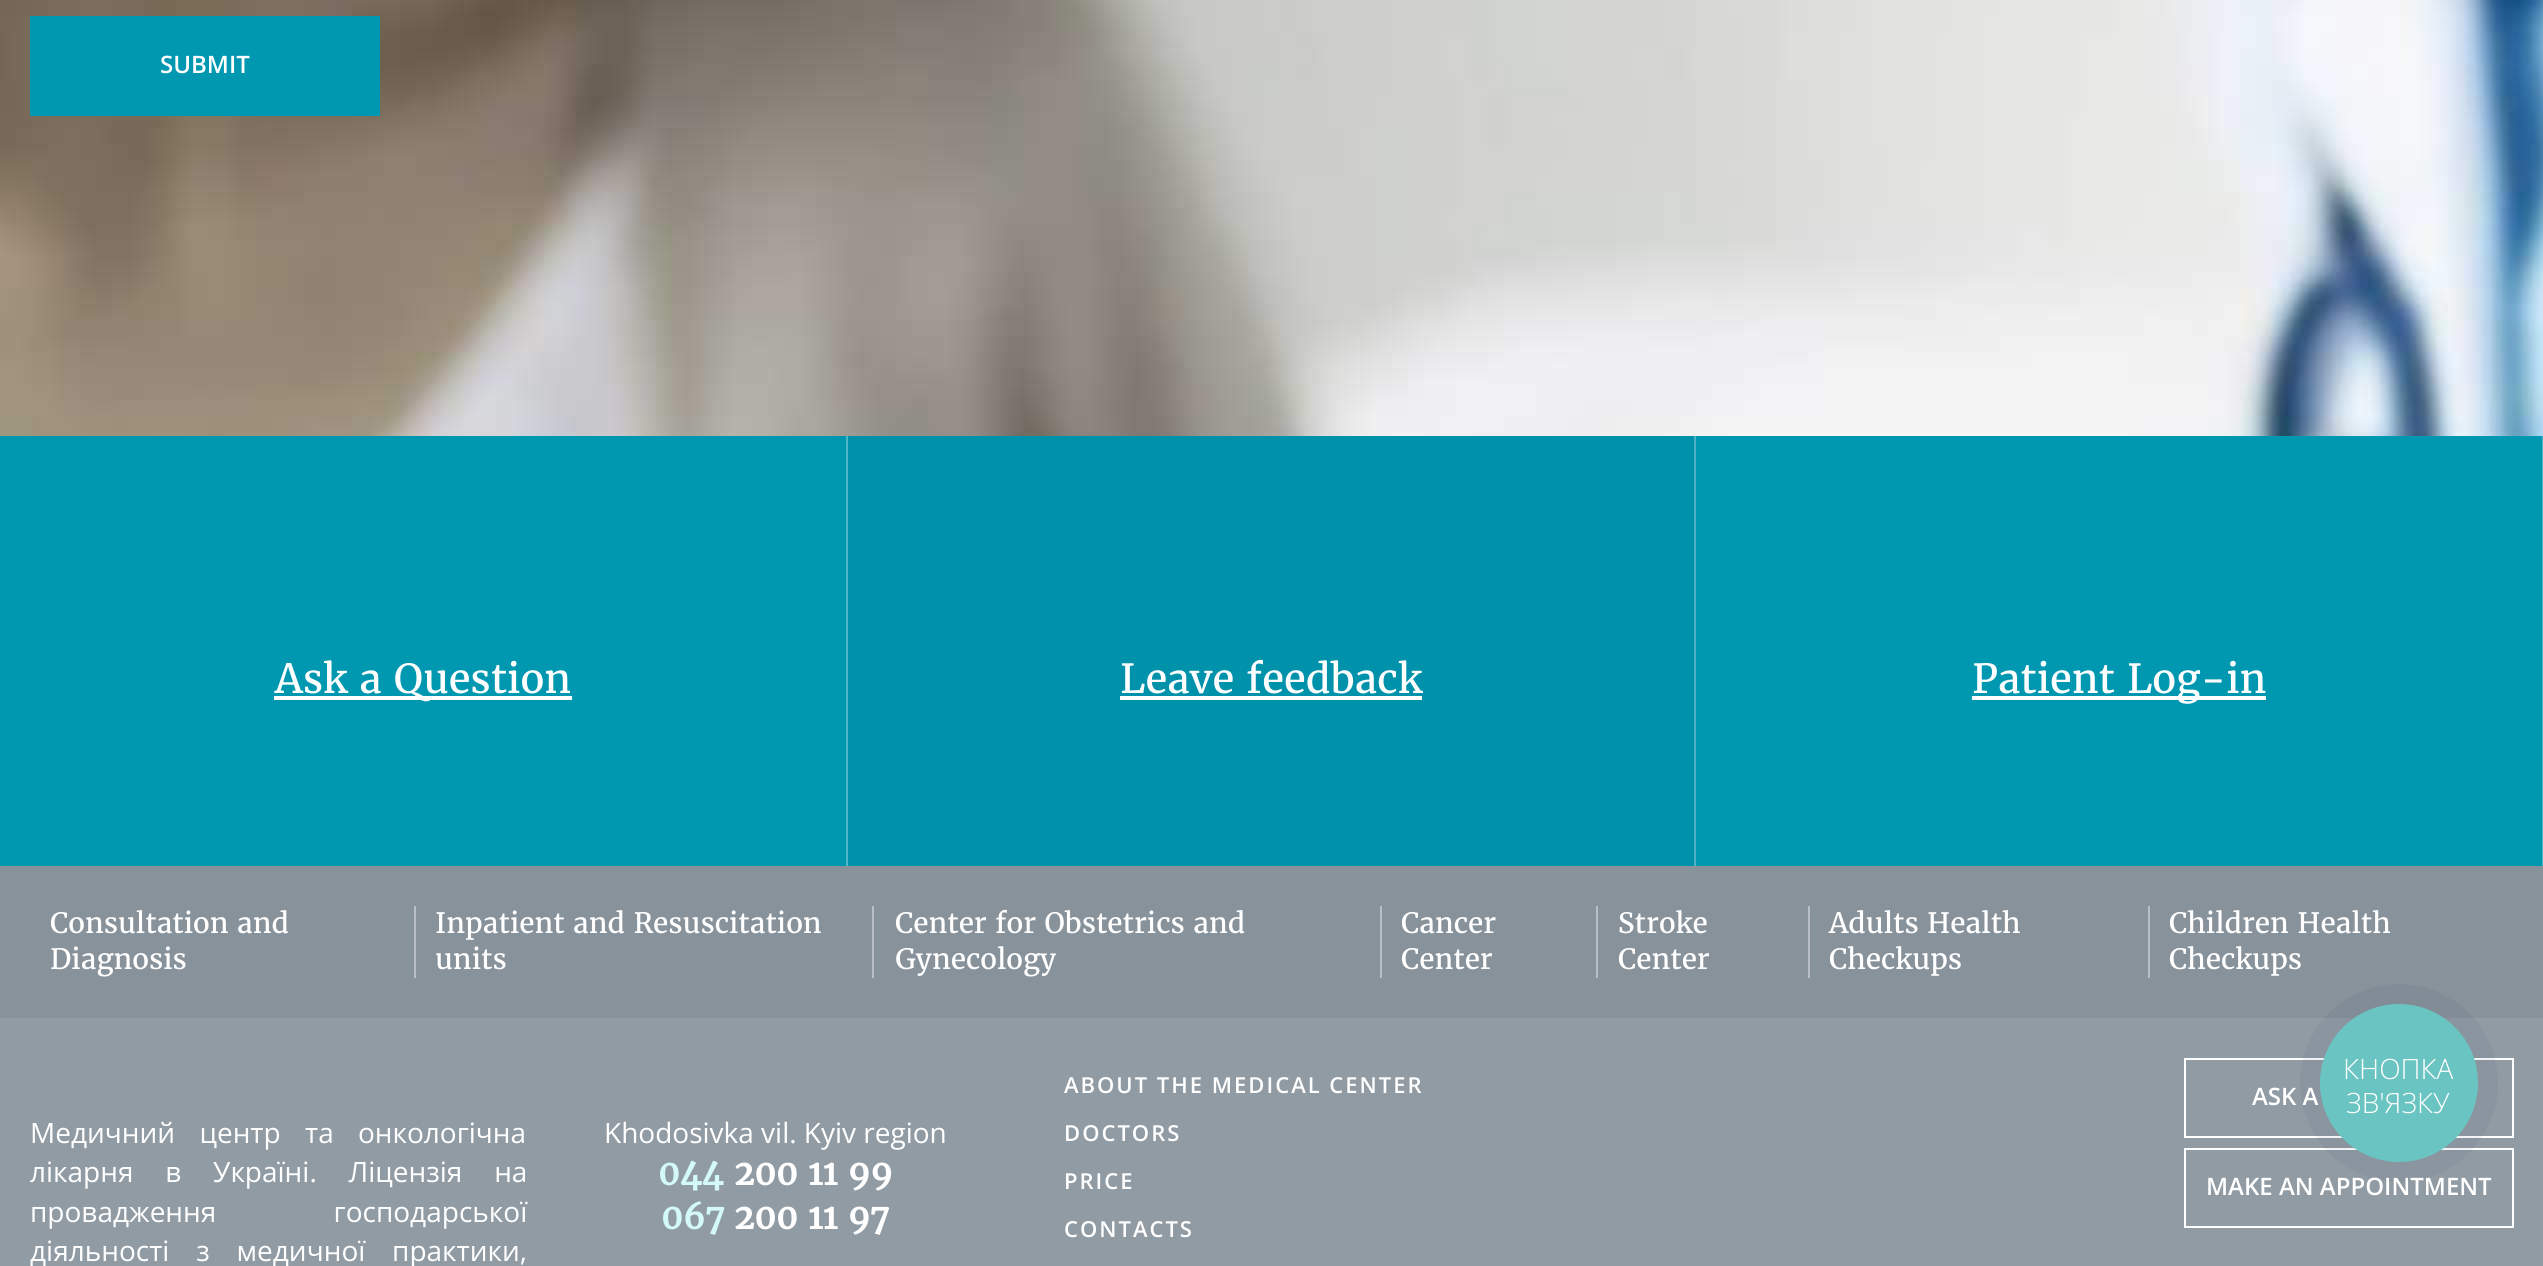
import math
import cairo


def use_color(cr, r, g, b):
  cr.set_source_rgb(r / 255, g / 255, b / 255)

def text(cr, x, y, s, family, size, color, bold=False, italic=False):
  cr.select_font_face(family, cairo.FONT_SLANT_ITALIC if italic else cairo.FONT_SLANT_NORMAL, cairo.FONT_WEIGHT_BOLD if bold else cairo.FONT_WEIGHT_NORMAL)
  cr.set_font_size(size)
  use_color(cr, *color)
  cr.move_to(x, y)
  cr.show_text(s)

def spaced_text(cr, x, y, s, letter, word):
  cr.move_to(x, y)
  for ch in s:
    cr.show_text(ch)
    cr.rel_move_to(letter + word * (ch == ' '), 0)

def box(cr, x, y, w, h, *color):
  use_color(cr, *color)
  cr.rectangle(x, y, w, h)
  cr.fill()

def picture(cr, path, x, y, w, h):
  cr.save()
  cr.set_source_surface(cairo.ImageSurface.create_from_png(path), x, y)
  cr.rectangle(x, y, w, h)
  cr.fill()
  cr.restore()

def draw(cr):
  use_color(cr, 136, 146, 155)
  cr.paint()
  picture(cr, "img_01.png", 0, 0, 2543, 436)
  box(cr, 30, 16, 350, 100, 0, 151, 176)
  box(cr, 0, 436, 846, 430, 0, 151, 176)
  box(cr, 846, 436, 2, 430, 77, 182, 200)
  box(cr, 274, 696, 298, 4, 255, 255, 255)
  box(cr, 848, 436, 846, 430, 0, 146, 170)
  box(cr, 1694, 436, 2, 430, 77, 179, 196)
  box(cr, 1120, 696, 302, 4, 255, 255, 255)
  box(cr, 1696, 436, 846, 430, 0, 151, 176)
  box(cr, 2542, 436, 1, 430, 77, 182, 200)
  box(cr, 1972, 696, 294, 4, 255, 255, 255)
  box(cr, 414, 906, 2, 72, 184, 190, 195)
  box(cr, 872, 906, 2, 72, 184, 190, 195)
  box(cr, 1380, 906, 2, 72, 184, 190, 195)
  box(cr, 1596, 906, 2, 72, 184, 190, 195)
  box(cr, 1808, 906, 2, 72, 184, 190, 195)
  box(cr, 2148, 906, 2, 72, 184, 190, 195)
  box(cr, 0, 1018, 2543, 248, 145, 155, 164)
  cr.rectangle(2185, 1059, 328, 78)
  use_color(cr, 255, 255, 255)
  cr.stroke()
  cr.rectangle(2185, 1149, 328, 78)
  cr.stroke()
  cr.set_source_rgba(0.165, 0.251, 0.365, 0.06)
  cr.arc(2399, 1083, 99, 0, 2 * math.pi)
  cr.fill()
  use_color(cr, 106, 196, 193)
  cr.arc(2399, 1083, 79, 0, 2 * math.pi)
  cr.fill()
  text(cr, 160, 73, "SUBMIT", "Open Sans SemiBold", 24, (255, 255, 255))
  text(cr, 275, 693, "Ask a Question", "Merriweather", 40, (255, 255, 255))
  text(cr, 1120, 693, "Leave feedback", "Merriweather", 40, (255, 255, 255))
  text(cr, 1972, 693, "Patient Log-in", "Merriweather", 40, (255, 255, 255))
  text(cr, 50, 933, "Consultation and", "Merriweather", 28, (255, 255, 255))
  text(cr, 50, 969, "Diagnosis", "Merriweather", 28, (255, 255, 255))
  text(cr, 435, 933, "Inpatient and Resuscitation", "Merriweather", 28, (255, 255, 255))
  text(cr, 435, 969, "units", "Merriweather", 28, (255, 255, 255))
  text(cr, 895, 933, "Center for Obstetrics and", "Merriweather", 28, (255, 255, 255))
  text(cr, 895, 969, "Gynecology", "Merriweather", 28, (255, 255, 255))
  text(cr, 1401, 933, "Cancer", "Merriweather", 28, (255, 255, 255))
  text(cr, 1401, 969, "Center", "Merriweather", 28, (255, 255, 255))
  text(cr, 1618, 933, "Stroke", "Merriweather", 28, (255, 255, 255))
  text(cr, 1618, 969, "Center", "Merriweather", 28, (255, 255, 255))
  text(cr, 1829, 933, "Adults Health", "Merriweather", 28, (255, 255, 255))
  text(cr, 1829, 969, "Checkups", "Merriweather", 28, (255, 255, 255))
  text(cr, 2169, 933, "Children Health", "Merriweather", 28, (255, 255, 255))
  text(cr, 2169, 969, "Checkups", "Merriweather", 28, (255, 255, 255))
  cr.select_font_face("Open Sans")
  spaced_text(cr, 30, 1143, "Медичний центр та онкологічна", 0, 17)
  spaced_text(cr, 30, 1182, "лікарня в Україні. Ліцензія на", 0, 24.5)
  spaced_text(cr, 30, 1222, "провадження господарської", 0, 110)
  spaced_text(cr, 30, 1261, "діяльності з медичної практики,", 0, 19.5)
  text(cr, 604, 1143, "Khodosivka vil. Kyiv region", "Open Sans", 28, (255, 255, 255))
  text(cr, 658, 1185, "044", "Merriweather", 34, (212, 249, 249), bold=True)
  text(cr, 734, 1185, "200 11 99", "Merriweather", 34, (255, 255, 255), bold=True)
  text(cr, 661, 1229, "067", "Merriweather", 34, (212, 249, 249), bold=True)
  text(cr, 734, 1229, "200 11 97", "Merriweather", 34, (255, 255, 255), bold=True)
  cr.select_font_face("Open Sans SemiBold")
  cr.set_font_size(22)
  spaced_text(cr, 1064, 1093, "ABOUT THE MEDICAL CENTER", 2, 0)
  spaced_text(cr, 1064, 1141, "DOCTORS", 2, 0)
  spaced_text(cr, 1064, 1189, "PRICE", 2, 0)
  spaced_text(cr, 1064, 1237, "CONTACTS", 2, 0)
  text(cr, 2252, 1105, "ASK A", "Open Sans SemiBold", 24, (255, 255, 255))
  text(cr, 2206, 1195, "MAKE AN APPOINTMENT", "Open Sans SemiBold", 24, (255, 255, 255))
  text(cr, 2343, 1079, "КНОПКА", "Open Sans Light", 28, (255, 255, 255))
  text(cr, 2346, 1113, "ЗВ'ЯЗКУ", "Open Sans Light", 28, (255, 255, 255))


surface = cairo.ImageSurface(cairo.FORMAT_RGB24, 2543, 1266)
cr = cairo.Context(surface)
options = cairo.FontOptions()
options.set_hint_metrics(cairo.HINT_METRICS_OFF)
options.set_hint_style(cairo.HINT_STYLE_NONE)
cr.set_font_options(options)
cr.set_miter_limit(4)
draw(cr)
surface.write_to_png("out.png")
